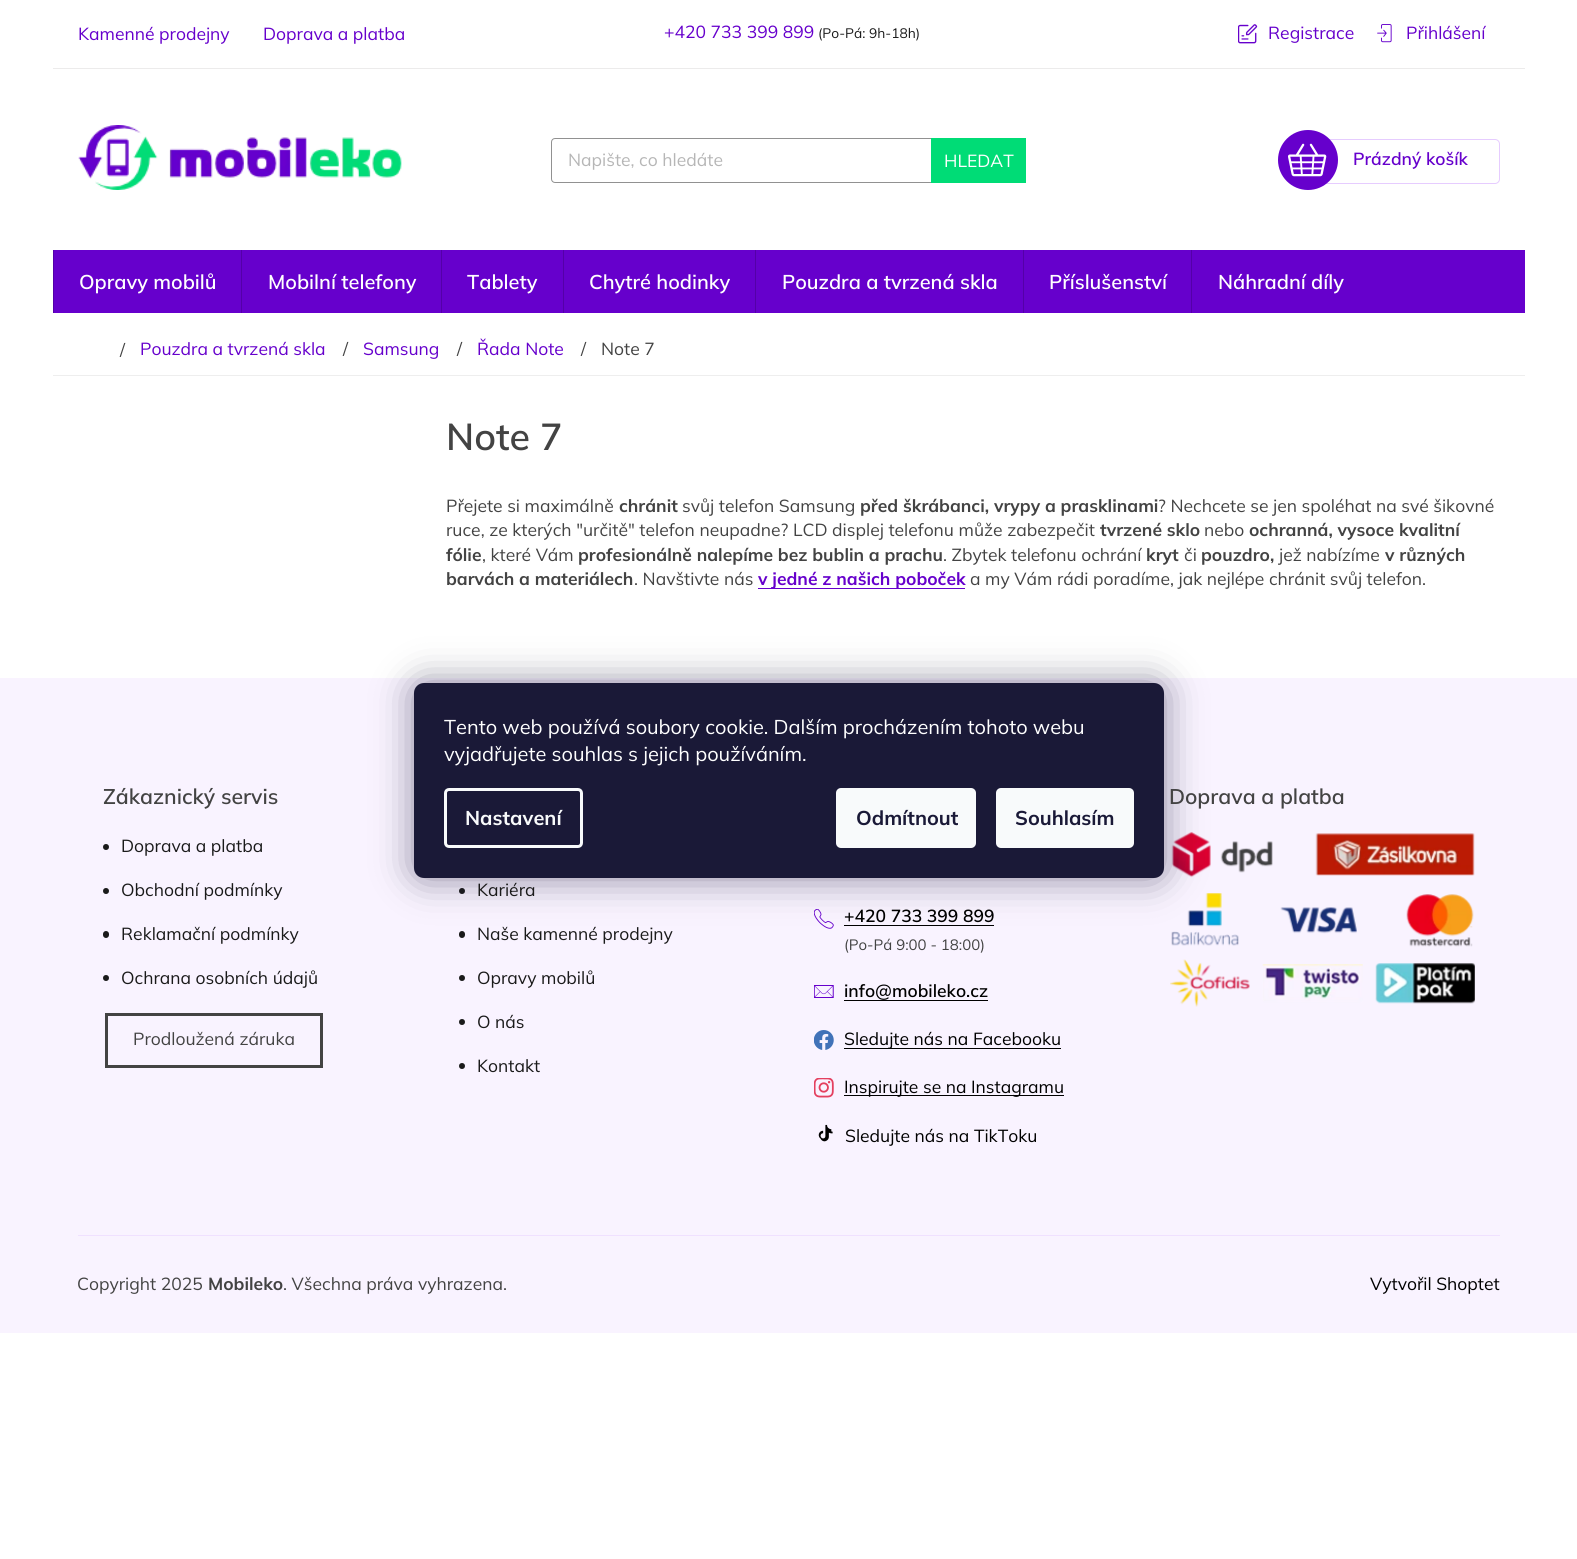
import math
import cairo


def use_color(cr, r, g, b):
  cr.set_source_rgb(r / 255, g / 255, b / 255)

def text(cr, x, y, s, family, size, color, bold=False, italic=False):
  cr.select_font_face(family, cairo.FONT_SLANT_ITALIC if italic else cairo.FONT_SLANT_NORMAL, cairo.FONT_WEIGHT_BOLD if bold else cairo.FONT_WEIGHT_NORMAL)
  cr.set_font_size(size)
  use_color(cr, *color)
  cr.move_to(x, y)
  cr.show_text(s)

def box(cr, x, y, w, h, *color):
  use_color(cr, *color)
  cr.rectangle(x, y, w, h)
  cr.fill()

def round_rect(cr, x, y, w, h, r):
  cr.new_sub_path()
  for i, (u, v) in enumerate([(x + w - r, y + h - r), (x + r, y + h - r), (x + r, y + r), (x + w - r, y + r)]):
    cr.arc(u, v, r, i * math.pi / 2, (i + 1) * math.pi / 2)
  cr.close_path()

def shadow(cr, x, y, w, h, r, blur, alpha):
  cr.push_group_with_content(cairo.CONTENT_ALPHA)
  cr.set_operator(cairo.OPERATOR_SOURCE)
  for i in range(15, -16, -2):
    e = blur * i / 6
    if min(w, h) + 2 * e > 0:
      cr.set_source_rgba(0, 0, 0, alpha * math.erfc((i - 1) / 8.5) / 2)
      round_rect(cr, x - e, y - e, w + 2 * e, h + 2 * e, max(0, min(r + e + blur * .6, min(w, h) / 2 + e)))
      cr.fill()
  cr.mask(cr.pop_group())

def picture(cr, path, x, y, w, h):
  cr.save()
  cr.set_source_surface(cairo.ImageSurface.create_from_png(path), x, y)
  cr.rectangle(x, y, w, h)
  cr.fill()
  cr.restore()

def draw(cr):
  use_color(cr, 255, 255, 255)
  cr.paint()
  box(cr, 53, 68, 1472, 1, 236, 235, 235)
  picture(cr, "img_01.png", 1238, 24, 20, 20)
  picture(cr, "img_02.png", 1377, 24, 15, 19)
  picture(cr, "img_03.png", 78, 125, 324, 65)
  round_rect(cr, 551.5, 138.5, 474, 44, 3.5)
  use_color(cr, 145, 145, 145)
  cr.set_line_width(1)
  cr.stroke()
  box(cr, 931, 138, 95, 45, 0, 220, 118)
  round_rect(cr, 1320.5, 139.5, 179, 44, 4.5)
  use_color(cr, 230, 204, 255)
  cr.stroke()
  use_color(cr, 102, 0, 204)
  cr.arc(1308, 160, 30, 0, 2 * math.pi)
  cr.fill()
  picture(cr, "img_04.png", 1288, 143, 39, 34)
  box(cr, 54, 250, 1471, 63, 102, 0, 204)
  box(cr, 53, 250, 1, 63, 84, 0, 168)
  box(cr, 241, 250, 1, 63, 84, 0, 168)
  box(cr, 441, 250, 1, 63, 84, 0, 168)
  box(cr, 563, 250, 1, 63, 84, 0, 168)
  box(cr, 755, 250, 1, 63, 84, 0, 168)
  box(cr, 1023, 250, 1, 63, 84, 0, 168)
  box(cr, 1191, 250, 1, 63, 84, 0, 168)
  box(cr, 53, 375, 1472, 1, 238, 238, 238)
  box(cr, 758, 588, 207, 1, 102, 0, 204)
  box(cr, 0, 678, 1577, 655, 249, 243, 255)
  box(cr, 78, 1235, 1422, 1, 240, 225, 255)
  use_color(cr, 26, 26, 26)
  cr.arc(106, 847, 3, 0, 2 * math.pi)
  cr.fill()
  cr.arc(106, 891, 3, 0, 2 * math.pi)
  cr.fill()
  round_rect(cr, 103, 931, 6, 7, 3)
  cr.fill()
  cr.arc(106, 978, 3, 0, 2 * math.pi)
  cr.fill()
  cr.rectangle(106.5, 1014.5, 215, 52)
  use_color(cr, 67, 67, 67)
  cr.set_line_width(3)
  cr.stroke()
  picture(cr, "img_05.png", 1170, 832, 305, 175)
  use_color(cr, 26, 26, 26)
  cr.arc(462, 891, 3, 0, 2 * math.pi)
  cr.fill()
  round_rect(cr, 459, 931, 6, 7, 3)
  cr.fill()
  cr.arc(462, 978, 3, 0, 2 * math.pi)
  cr.fill()
  cr.arc(462, 1022, 3, 0, 2 * math.pi)
  cr.fill()
  cr.arc(462, 1066, 3, 0, 2 * math.pi)
  cr.fill()
  picture(cr, "img_06.png", 814, 909, 20, 20)
  box(cr, 844, 925, 150, 1, 0, 0, 0)
  picture(cr, "img_07.png", 814, 985, 20, 13)
  box(cr, 844, 1000, 144, 1, 0, 0, 0)
  picture(cr, "img_08.png", 814, 1030, 20, 20)
  box(cr, 844, 1048, 217, 1, 0, 0, 0)
  picture(cr, "img_09.png", 814, 1078, 20, 20)
  box(cr, 844, 1095, 220, 1, 0, 0, 0)
  picture(cr, "img_10.png", 818, 1124, 15, 18)
  use_color(cr, 27, 25, 57)
  shadow(cr, 414, 683, 750, 195, 10, 19, 0.5)
  use_color(cr, 26, 25, 55)
  round_rect(cr, 414, 683, 750, 195, 10)
  cr.fill()
  round_rect(cr, 445.5, 789.5, 136, 57, 3.5)
  use_color(cr, 248, 250, 251)
  cr.stroke()
  round_rect(cr, 836, 788, 140, 60, 5)
  cr.fill()
  round_rect(cr, 996, 788, 138, 60, 5)
  cr.fill()
  text(cr, 78, 40, "Kamenné prodejny", "Mulish", 17.5, (102, 0, 204))
  text(cr, 263, 40, "Doprava a platba", "Mulish", 17.5, (102, 0, 204))
  text(cr, 664, 38, "+420 733 399 899", "Mulish", 17.5, (102, 0, 204))
  text(cr, 818, 38, "(Po-Pá: 9h-18h)", "Mulish", 13.75, (26, 26, 26))
  text(cr, 1268, 39, "Registrace", "Mulish", 17.5, (102, 0, 204))
  text(cr, 1406, 39, "Přihlášení", "Mulish", 17.5, (102, 0, 204))
  text(cr, 568, 166, "Napište, co hledáte", "Mulish", 17.5, (182, 182, 182))
  text(cr, 944, 167, "HLEDAT", "Mulish", 17.5, (255, 255, 255))
  text(cr, 1353, 165, "Prázdný košík", "Mulish SemiBold", 17.5, (102, 0, 204))
  text(cr, 79, 289, "Opravy mobilů", "Mulish SemiBold", 20, (255, 255, 255))
  text(cr, 268, 289, "Mobilní telefony", "Mulish SemiBold", 20, (255, 255, 255))
  text(cr, 467, 289, "Tablety", "Mulish SemiBold", 20, (255, 255, 255))
  text(cr, 589, 289, "Chytré hodinky", "Mulish SemiBold", 20, (255, 255, 255))
  text(cr, 782, 289, "Pouzdra a tvrzená skla", "Mulish SemiBold", 20, (255, 255, 255))
  text(cr, 1049, 289, "Příslušenství", "Mulish SemiBold", 20, (255, 255, 255))
  text(cr, 1218, 289, "Náhradní díly", "Mulish SemiBold", 20, (255, 255, 255))
  text(cr, 120, 356, "/", "Mulish", 17.5, (67, 67, 67))
  text(cr, 140, 355, "Pouzdra a tvrzená skla", "Mulish", 17.5, (102, 0, 204))
  text(cr, 343, 355, "/", "Mulish", 17.5, (67, 67, 67))
  text(cr, 363, 355, "Samsung", "Mulish", 17.5, (102, 0, 204))
  text(cr, 457, 355, "/", "Mulish", 17.5, (67, 67, 67))
  text(cr, 477, 355, "Řada Note", "Mulish", 17.5, (102, 0, 204))
  text(cr, 581, 355, "/", "Mulish", 17.5, (67, 67, 67))
  text(cr, 601, 355, "Note 7", "Mulish", 17.5, (67, 67, 67))
  text(cr, 446, 450, "Note 7", "Mulish SemiBold", 37.5, (67, 67, 67))
  text(cr, 446, 512, "Přejete si maximálně", "Mulish", 17.5, (67, 67, 67))
  text(cr, 619, 512, "chránit", "Mulish", 17.5, (67, 67, 67), bold=True)
  text(cr, 682, 512, "svůj telefon Samsung", "Mulish", 17.5, (67, 67, 67))
  text(cr, 860, 512, "před škrábanci, vrypy a prasklinami", "Mulish", 17.5, (67, 67, 67), bold=True)
  text(cr, 1158, 512, "? Nechcete se jen spoléhat na své šikovné", "Mulish", 17.5, (67, 67, 67))
  text(cr, 446, 536, "ruce, ze kterých \"určitě\" telefon neupadne? LCD displej telefonu může zabezpečit", "Mulish", 17.5, (67, 67, 67))
  text(cr, 1100, 536, "tvrzené sklo", "Mulish", 17.5, (67, 67, 67), bold=True)
  text(cr, 1204, 536, "nebo", "Mulish", 17.5, (67, 67, 67))
  text(cr, 1249, 536, "ochranná, vysoce kvalitní", "Mulish", 17.5, (67, 67, 67), bold=True)
  text(cr, 446, 561, "fólie", "Mulish", 17.5, (67, 67, 67), bold=True)
  text(cr, 482, 561, ", které Vám", "Mulish", 17.5, (67, 67, 67))
  text(cr, 578, 561, "profesionálně nalepíme bez bublin a prachu", "Mulish", 17.5, (67, 67, 67), bold=True)
  text(cr, 943, 561, ". Zbytek telefonu ochrání", "Mulish", 17.5, (67, 67, 67))
  text(cr, 1146, 561, "kryt", "Mulish", 17.5, (67, 67, 67), bold=True)
  text(cr, 1184, 561, "či", "Mulish", 17.5, (67, 67, 67))
  text(cr, 1201, 561, "pouzdro,", "Mulish", 17.5, (67, 67, 67), bold=True)
  text(cr, 1279, 561, "jež nabízíme", "Mulish", 17.5, (67, 67, 67))
  text(cr, 1385, 561, "v různých", "Mulish", 17.5, (67, 67, 67), bold=True)
  text(cr, 446, 585, "barvách a materiálech", "Mulish", 17.5, (67, 67, 67), bold=True)
  text(cr, 634, 585, ". Navštivte nás", "Mulish", 17.5, (67, 67, 67))
  text(cr, 758, 585, "v jedné z našich poboček", "Mulish", 17.5, (102, 0, 204), bold=True)
  text(cr, 970, 585, "a my Vám rádi poradíme, jak nejlépe chránit svůj telefon.", "Mulish", 17.5, (67, 67, 67))
  text(cr, 103, 804, "Zákaznický servis", "Mulish SemiBold", 21.25, (67, 67, 67))
  text(cr, 121, 852, "Doprava a platba", "Mulish", 17.5, (26, 26, 26))
  text(cr, 121, 896, "Obchodní podmínky", "Mulish", 17.5, (26, 26, 26))
  text(cr, 121, 940, "Reklamační podmínky", "Mulish", 17.5, (26, 26, 26))
  text(cr, 121, 984, "Ochrana osobních údajů", "Mulish", 17.5, (26, 26, 26))
  text(cr, 133, 1045, "Prodloužená záruka", "Mulish", 17.5, (67, 67, 67))
  text(cr, 1169, 804, "Doprava a platba", "Mulish SemiBold", 21.25, (67, 67, 67))
  text(cr, 477, 896, "Kariéra", "Mulish", 17.5, (26, 26, 26))
  text(cr, 477, 940, "Naše kamenné prodejny", "Mulish", 17.5, (26, 26, 26))
  text(cr, 477, 984, "Opravy mobilů", "Mulish", 17.5, (26, 26, 26))
  text(cr, 477, 1028, "O nás", "Mulish", 17.5, (26, 26, 26))
  text(cr, 477, 1072, "Kontakt", "Mulish", 17.5, (26, 26, 26))
  text(cr, 844, 922, "+420 733 399 899", "Mulish SemiBold", 17.5, (0, 0, 0))
  text(cr, 844, 950, "(Po-Pá 9:00 - 18:00)", "Mulish", 15, (67, 67, 67))
  text(cr, 844, 997, "info@mobileko.cz", "Mulish SemiBold", 17.5, (0, 0, 0))
  text(cr, 844, 1045, "Sledujte nás na Facebooku", "Mulish", 17.5, (0, 0, 0))
  text(cr, 844, 1093, "Inspirujte se na Instagramu", "Mulish", 17.5, (0, 0, 0))
  text(cr, 845, 1142, "Sledujte nás na TikToku", "Mulish", 17.5, (0, 0, 0))
  text(cr, 77, 1290, "Copyright 2025", "Mulish", 17.5, (67, 67, 67))
  text(cr, 208, 1290, "Mobileko", "Mulish", 17.5, (67, 67, 67), bold=True)
  text(cr, 283, 1290, ". Všechna práva vyhrazena.", "Mulish", 17.5, (67, 67, 67))
  text(cr, 1370, 1290, "Vytvořil Shoptet", "Mulish", 17.5, (0, 0, 0))
  text(cr, 444, 734, "Tento web používá soubory cookie. Dalším procházením tohoto webu", "Mulish", 20, (255, 255, 255))
  text(cr, 444, 761, "vyjadřujete souhlas s jejich používáním.", "Mulish", 20, (255, 255, 255))
  text(cr, 465, 825, "Nastavení", "Mulish", 20, (248, 250, 251), bold=True)
  text(cr, 856, 825, "Odmítnout", "Mulish", 20, (26, 25, 55), bold=True)
  text(cr, 1015, 825, "Souhlasím", "Mulish", 20, (26, 25, 55), bold=True)


surface = cairo.ImageSurface(cairo.FORMAT_RGB24, 1577, 1559)
cr = cairo.Context(surface)
options = cairo.FontOptions()
options.set_hint_metrics(cairo.HINT_METRICS_OFF)
options.set_hint_style(cairo.HINT_STYLE_NONE)
cr.set_font_options(options)
cr.set_miter_limit(4)
draw(cr)
surface.write_to_png("out.png")
